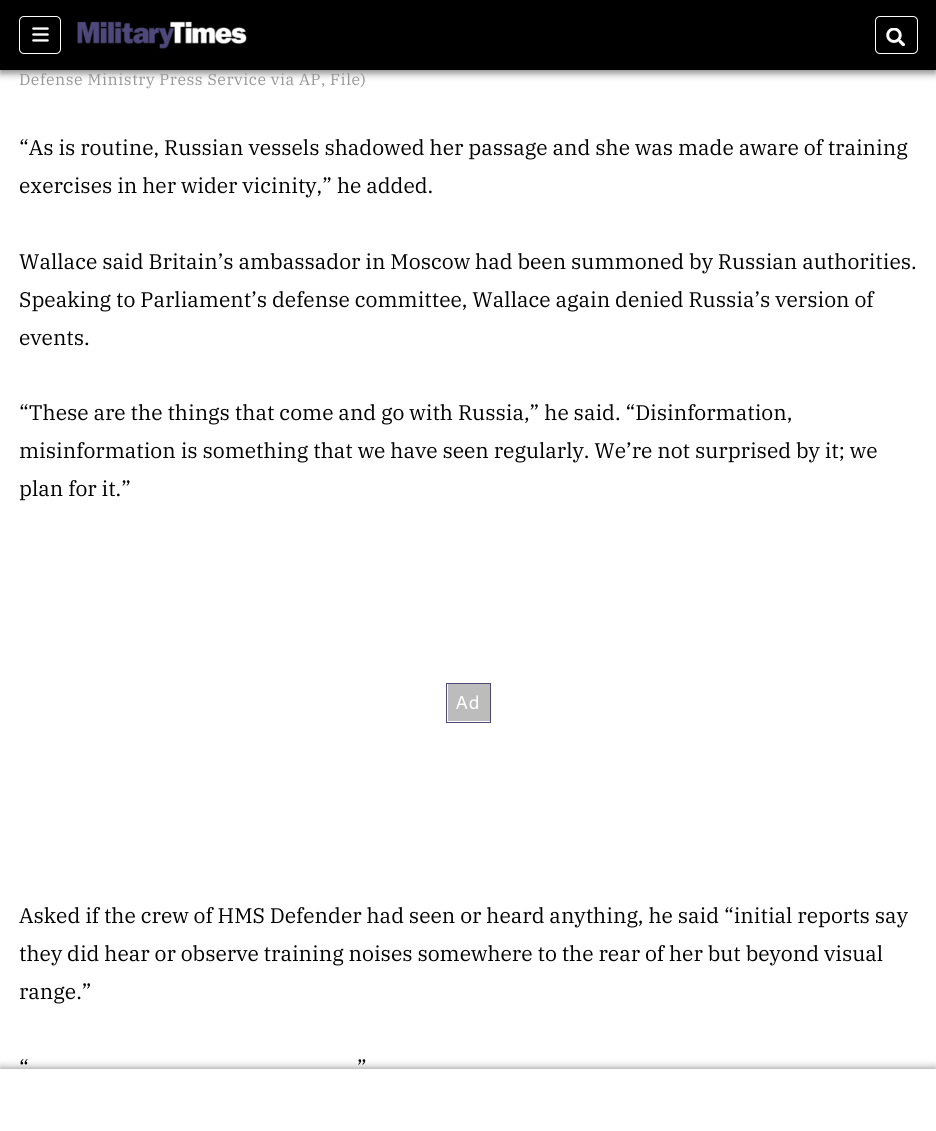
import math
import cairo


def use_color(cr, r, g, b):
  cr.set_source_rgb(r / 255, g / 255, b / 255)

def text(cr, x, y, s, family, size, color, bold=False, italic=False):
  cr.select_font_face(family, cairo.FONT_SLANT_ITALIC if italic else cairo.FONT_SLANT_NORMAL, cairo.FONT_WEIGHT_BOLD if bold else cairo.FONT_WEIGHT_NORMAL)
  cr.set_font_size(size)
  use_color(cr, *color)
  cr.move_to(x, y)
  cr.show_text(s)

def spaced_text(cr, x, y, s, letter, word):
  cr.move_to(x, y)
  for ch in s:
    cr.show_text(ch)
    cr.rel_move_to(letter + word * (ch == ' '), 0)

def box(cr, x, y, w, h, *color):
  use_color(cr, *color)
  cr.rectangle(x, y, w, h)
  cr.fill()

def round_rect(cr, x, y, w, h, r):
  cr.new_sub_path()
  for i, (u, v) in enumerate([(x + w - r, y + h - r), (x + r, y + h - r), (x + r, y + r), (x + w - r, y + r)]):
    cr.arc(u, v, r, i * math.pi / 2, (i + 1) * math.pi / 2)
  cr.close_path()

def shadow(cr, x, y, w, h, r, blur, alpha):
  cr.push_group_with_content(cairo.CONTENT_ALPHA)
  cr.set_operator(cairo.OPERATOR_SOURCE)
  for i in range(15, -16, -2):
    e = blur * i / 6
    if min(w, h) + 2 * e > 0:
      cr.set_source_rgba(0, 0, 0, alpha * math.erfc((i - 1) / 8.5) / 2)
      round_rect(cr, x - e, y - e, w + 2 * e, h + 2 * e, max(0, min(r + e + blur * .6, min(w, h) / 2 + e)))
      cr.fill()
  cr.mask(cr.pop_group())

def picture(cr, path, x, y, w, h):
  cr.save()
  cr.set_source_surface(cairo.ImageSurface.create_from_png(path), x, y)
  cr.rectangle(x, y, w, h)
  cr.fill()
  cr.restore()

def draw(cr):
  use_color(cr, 255, 255, 255)
  cr.paint()
  use_color(cr, 0, 0, 0)
  shadow(cr, 0, 3, 936, 70, 0, 4, 0.5)
  box(cr, 0, 0, 936, 70, 0, 0, 0)
  round_rect(cr, 19.5, 16.5, 41, 37, 4.5)
  use_color(cr, 255, 255, 255)
  cr.set_line_width(1)
  cr.stroke()
  picture(cr, "img_01.png", 32, 27, 17, 15)
  picture(cr, "img_02.png", 77, 21, 170, 28)
  round_rect(cr, 875.5, 16.5, 42, 37, 4.5)
  cr.stroke()
  picture(cr, "img_03.png", 886, 28, 19, 18)
  use_color(cr, 0, 0, 0)
  shadow(cr, 0, 1069, 936, 62, 0, 4.5, 0.5)
  box(cr, 0, 1069, 936, 62, 255, 255, 255)
  box(cr, 448, 684, 42, 37, 188, 188, 188)
  picture(cr, "img_04.png", 456, 695, 22, 14)
  cr.rectangle(446.5, 683.5, 44, 39)
  use_color(cr, 78, 74, 120)
  cr.stroke()
  cr.select_font_face("IBM Plex Serif")
  cr.set_font_size(15.95)
  use_color(cr, 150, 150, 150)
  spaced_text(cr, 19, 85, "Defense Ministry Press Service via AP, File)", 0.55, 0)
  text(cr, 19, 155, "“As is routine, Russian vessels shadowed her passage and she was made aware of training", "IBM Plex Serif", 21.1, (0, 0, 0))
  text(cr, 19, 193, "exercises in her wider vicinity,” he added.", "IBM Plex Serif", 21.1, (0, 0, 0))
  text(cr, 19, 269, "Wallace said Britain’s ambassador in Moscow had been summoned by Russian authorities.", "IBM Plex Serif", 21.1, (0, 0, 0))
  text(cr, 19, 307, "Speaking to Parliament’s defense committee, Wallace again denied Russia’s version of", "IBM Plex Serif", 21.1, (0, 0, 0))
  text(cr, 19, 345, "events.", "IBM Plex Serif", 21.1, (0, 0, 0))
  text(cr, 19, 420, "“These are the things that come and go with Russia,” he said. “Disinformation,", "IBM Plex Serif", 21.1, (0, 0, 0))
  text(cr, 19, 458, "misinformation is something that we have seen regularly. We’re not surprised by it; we", "IBM Plex Serif", 21.1, (0, 0, 0))
  text(cr, 19, 496, "plan for it.”", "IBM Plex Serif", 21.1, (0, 0, 0))
  text(cr, 19, 923, "Asked if the crew of HMS Defender had seen or heard anything, he said “initial reports say", "IBM Plex Serif", 21.1, (0, 0, 0))
  text(cr, 19, 961, "they did hear or observe training noises somewhere to the rear of her but beyond visual", "IBM Plex Serif", 21.1, (0, 0, 0))
  text(cr, 19, 999, "range.”", "IBM Plex Serif", 21.1, (0, 0, 0))
  text(cr, 19, 1075, "“", "IBM Plex Serif", 21.1, (0, 0, 0))
  text(cr, 357, 1075, "”", "IBM Plex Serif", 21.1, (0, 0, 0))


surface = cairo.ImageSurface(cairo.FORMAT_RGB24, 936, 1131)
cr = cairo.Context(surface)
options = cairo.FontOptions()
options.set_hint_metrics(cairo.HINT_METRICS_OFF)
options.set_hint_style(cairo.HINT_STYLE_NONE)
cr.set_font_options(options)
cr.set_miter_limit(4)
draw(cr)
surface.write_to_png("out.png")
